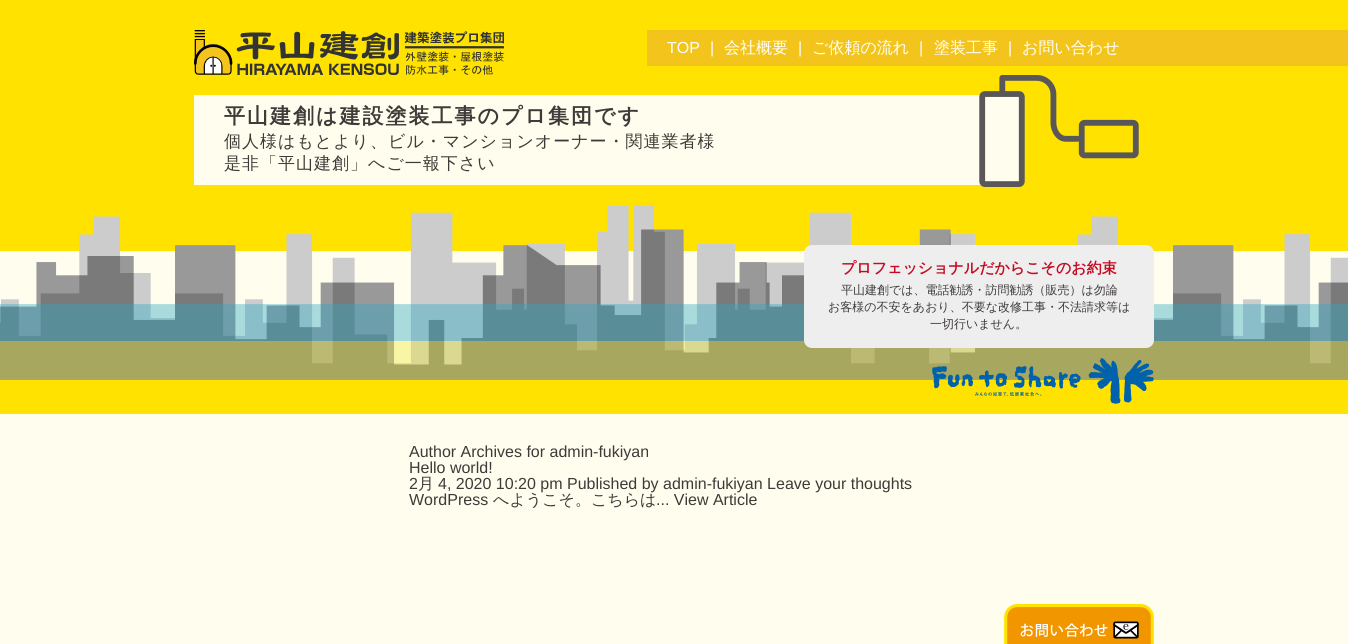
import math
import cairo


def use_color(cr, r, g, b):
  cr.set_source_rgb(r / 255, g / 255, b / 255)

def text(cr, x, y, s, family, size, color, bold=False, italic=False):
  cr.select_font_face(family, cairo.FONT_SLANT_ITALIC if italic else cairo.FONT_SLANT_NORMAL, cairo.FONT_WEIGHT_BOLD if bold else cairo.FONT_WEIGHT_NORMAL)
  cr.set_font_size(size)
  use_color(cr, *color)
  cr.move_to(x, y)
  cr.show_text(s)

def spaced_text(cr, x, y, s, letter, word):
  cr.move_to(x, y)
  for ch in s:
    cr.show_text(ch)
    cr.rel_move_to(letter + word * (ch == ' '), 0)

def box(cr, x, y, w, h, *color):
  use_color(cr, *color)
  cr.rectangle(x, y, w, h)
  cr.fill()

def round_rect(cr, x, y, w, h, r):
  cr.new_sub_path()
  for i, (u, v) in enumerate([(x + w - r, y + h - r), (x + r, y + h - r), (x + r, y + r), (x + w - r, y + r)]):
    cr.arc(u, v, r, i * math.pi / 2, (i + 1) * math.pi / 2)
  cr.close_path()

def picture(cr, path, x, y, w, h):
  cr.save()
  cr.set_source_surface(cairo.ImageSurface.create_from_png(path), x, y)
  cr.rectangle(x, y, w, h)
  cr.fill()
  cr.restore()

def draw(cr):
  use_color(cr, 255, 253, 237)
  cr.paint()
  box(cr, 0, 0, 1348, 414, 255, 226, 0)
  picture(cr, "img_01.png", 194, 30, 310, 45)
  box(cr, 647, 30, 701, 36, 243, 197, 28)
  box(cr, 194, 95, 787, 90, 255, 253, 237)
  picture(cr, "img_02.png", 979, 75, 160, 112)
  picture(cr, "img_03.png", 0, 205, 1348, 175)
  use_color(cr, 238, 238, 239)
  round_rect(cr, 804, 245, 350, 103, 8)
  cr.fill()
  picture(cr, "img_04.png", 932, 358, 222, 46)
  picture(cr, "img_05.png", 1004, 604, 150, 40)
  text(cr, 667, 53, "TOP", "Liberation Sans", 16, (255, 255, 255))
  text(cr, 710, 53, "|", "Liberation Sans", 16, (255, 255, 255))
  text(cr, 724, 53, "会社概要", "WenQuanYi Zen Hei Medium", 16, (255, 255, 255))
  text(cr, 798, 53, "|", "Liberation Sans", 16, (255, 255, 255))
  text(cr, 812, 53, "ご依頼の流れ", "WenQuanYi Zen Hei Medium", 16, (255, 255, 255))
  text(cr, 919, 53, "|", "Liberation Sans", 16, (255, 255, 255))
  text(cr, 934, 53, "塗装工事", "WenQuanYi Zen Hei Medium", 16, (255, 255, 255))
  text(cr, 1008, 53, "|", "Liberation Sans", 16, (255, 255, 255))
  text(cr, 1022, 53, "お問い合わせ", "WenQuanYi Zen Hei Medium", 16, (255, 255, 255))
  cr.select_font_face("WenQuanYi Zen Hei", cairo.FONT_SLANT_NORMAL, cairo.FONT_WEIGHT_BOLD)
  cr.set_font_size(21)
  use_color(cr, 62, 58, 57)
  spaced_text(cr, 224, 123, "平山建創は建設塗装工事のプロ集団です", 2, 0)
  cr.select_font_face("WenQuanYi Zen Hei Medium")
  cr.set_font_size(17)
  spaced_text(cr, 224, 147, "個人様はもとより、ビル・マンションオーナー・関連業者様", 1, 0)
  spaced_text(cr, 224, 169, "是非「平山建創」へご一報下さい", 1, 0)
  text(cr, 841, 273, "プロフェッショナルだからこそのお約束", "WenQuanYi Zen Hei", 15, (195, 13, 35), bold=True)
  text(cr, 841, 294, "平山建創では、電話勧誘・訪問勧誘（販売）は勿論", "WenQuanYi Zen Hei Medium", 12, (62, 58, 57))
  text(cr, 828, 311, "お客様の不安をあおり、不要な改修工事・不法請求等は", "WenQuanYi Zen Hei Medium", 12, (62, 58, 57))
  text(cr, 930, 328, "一切行いません。", "WenQuanYi Zen Hei Medium", 12, (62, 58, 57))
  text(cr, 409, 457, "Author Archives for admin-fukiyan", "Liberation Sans", 16, (62, 58, 57))
  text(cr, 409, 473, "Hello world!", "Liberation Sans", 16, (62, 58, 57))
  text(cr, 409, 489, "2", "Liberation Sans", 16, (62, 58, 57))
  text(cr, 418, 489, "月", "WenQuanYi Zen Hei Medium", 16, (62, 58, 57))
  text(cr, 438, 489, "4, 2020 10:20 pm Published by admin-fukiyan Leave your thoughts", "Liberation Sans", 16, (62, 58, 57))
  text(cr, 409, 505, "WordPress", "Liberation Sans", 16, (62, 58, 57))
  text(cr, 493, 505, "へようこそ。こちらは", "WenQuanYi Zen Hei Medium", 16, (62, 58, 57))
  text(cr, 656, 505, "... View Article", "Liberation Sans", 16, (62, 58, 57))


surface = cairo.ImageSurface(cairo.FORMAT_RGB24, 1348, 644)
cr = cairo.Context(surface)
options = cairo.FontOptions()
options.set_hint_metrics(cairo.HINT_METRICS_OFF)
options.set_hint_style(cairo.HINT_STYLE_NONE)
cr.set_font_options(options)
cr.set_miter_limit(4)
draw(cr)
surface.write_to_png("out.png")
